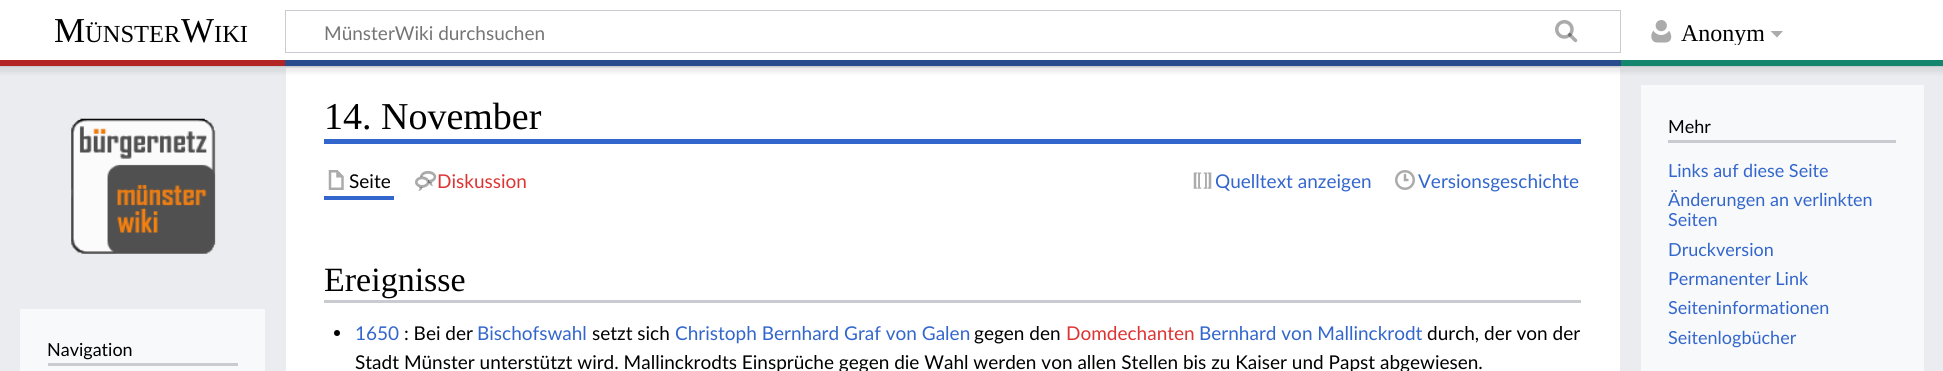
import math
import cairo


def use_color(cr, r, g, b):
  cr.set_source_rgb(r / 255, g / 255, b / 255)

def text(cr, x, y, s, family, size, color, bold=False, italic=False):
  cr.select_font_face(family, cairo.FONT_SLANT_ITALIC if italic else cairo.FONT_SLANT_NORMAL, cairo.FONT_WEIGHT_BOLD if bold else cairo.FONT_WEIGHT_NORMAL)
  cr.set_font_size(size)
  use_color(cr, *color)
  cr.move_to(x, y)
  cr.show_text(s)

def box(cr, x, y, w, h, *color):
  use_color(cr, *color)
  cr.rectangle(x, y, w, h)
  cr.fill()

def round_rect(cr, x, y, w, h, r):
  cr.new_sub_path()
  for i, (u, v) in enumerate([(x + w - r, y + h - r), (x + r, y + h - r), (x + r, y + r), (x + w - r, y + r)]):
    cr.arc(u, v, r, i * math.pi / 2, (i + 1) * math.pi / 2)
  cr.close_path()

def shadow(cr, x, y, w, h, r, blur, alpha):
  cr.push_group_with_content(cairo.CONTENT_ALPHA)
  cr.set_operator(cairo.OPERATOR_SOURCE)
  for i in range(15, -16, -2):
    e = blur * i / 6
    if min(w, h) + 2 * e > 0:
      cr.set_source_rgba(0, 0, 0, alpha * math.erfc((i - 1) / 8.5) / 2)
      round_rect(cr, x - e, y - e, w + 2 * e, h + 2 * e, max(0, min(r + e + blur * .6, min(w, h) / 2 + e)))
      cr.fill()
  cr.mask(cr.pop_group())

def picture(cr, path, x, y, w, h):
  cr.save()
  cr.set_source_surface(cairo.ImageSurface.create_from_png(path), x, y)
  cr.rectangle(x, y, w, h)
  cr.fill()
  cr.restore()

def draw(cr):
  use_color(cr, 234, 236, 240)
  cr.paint()
  box(cr, 286, 68, 1334, 303, 255, 255, 255)
  use_color(cr, 0, 0, 0)
  shadow(cr, 0, 60, 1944, 6, 0, 1, 0.2)
  shadow(cr, -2, 61, 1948, 12, 0, 2, 0.07)
  box(cr, 0, 0, 1943, 60, 255, 255, 255)
  cr.rectangle(285.5, 10.5, 1335, 42)
  use_color(cr, 200, 204, 209)
  cr.set_line_width(1)
  cr.stroke()
  picture(cr, "img_01.png", 1555, 20, 23, 23)
  picture(cr, "img_02.png", 1651, 20, 21, 23)
  use_color(cr, 171, 171, 171)
  cr.new_path()
  cr.move_to(1783, 31)
  cr.line_to(1777, 37.5)
  cr.line_to(1770.5, 31)
  cr.close_path()
  cr.fill()
  box(cr, 0, 60, 285, 6, 179, 36, 36)
  box(cr, 285, 60, 1336, 6, 42, 75, 141)
  box(cr, 1621, 60, 322, 6, 20, 134, 109)
  box(cr, 324, 139, 1257, 5, 51, 102, 204)
  box(cr, 324, 196, 70, 4, 51, 102, 204)
  picture(cr, "img_03.png", 328, 170, 16, 20)
  picture(cr, "img_04.png", 415, 171, 22, 21)
  picture(cr, "img_05.png", 1193, 172, 19, 17)
  picture(cr, "img_06.png", 1395, 170, 20, 20)
  box(cr, 324, 300, 1257, 3, 200, 204, 209)
  use_color(cr, 0, 0, 0)
  cr.arc(337, 333, 3, 0, 2 * math.pi)
  cr.fill()
  box(cr, 1641, 85, 283, 286, 248, 249, 250)
  box(cr, 1668, 140, 228, 3, 200, 204, 209)
  picture(cr, "img_07.png", 71, 118, 145, 136)
  box(cr, 20, 309, 245, 62, 248, 249, 250)
  box(cr, 48, 363, 190, 3, 200, 204, 209)
  text(cr, 54, 42, "M", "Liberation Serif", 35, (0, 0, 0))
  text(cr, 85, 42, "ÜNSTER", "Liberation Serif", 24.5, (0, 0, 0))
  text(cr, 181, 42, "W", "Liberation Serif", 35, (0, 0, 0))
  text(cr, 214, 42, "IKI", "Liberation Serif", 24.5, (0, 0, 0))
  text(cr, 324, 40, "MünsterWiki durchsuchen", "Lato", 19, (117, 117, 117))
  cr.save()
  cr.rectangle(1680, 21, 84, 24)
  cr.clip()
  text(cr, 1681, 41, "Anonym", "Liberation Serif", 24, (0, 0, 0))
  cr.restore()
  text(cr, 324, 129, "14. November", "Liberation Serif", 38, (0, 0, 0))
  text(cr, 349, 188, "Seite", "Lato", 19, (0, 0, 0))
  text(cr, 437, 188, "Diskussion", "Lato", 19, (221, 51, 51))
  text(cr, 1215, 188, "Quelltext anzeigen", "Lato", 19, (51, 102, 204))
  text(cr, 1418, 188, "Versionsgeschichte", "Lato", 19, (51, 102, 204))
  text(cr, 324, 291, "Ereignisse", "Liberation Serif", 34, (0, 0, 0))
  text(cr, 355, 340, "1650", "Lato", 19, (51, 102, 204))
  text(cr, 404, 340, ": Bei der", "Lato", 19, (0, 0, 0))
  text(cr, 477, 340, "Bischofswahl", "Lato", 19, (51, 102, 204))
  text(cr, 592, 340, "setzt sich", "Lato", 19, (0, 0, 0))
  text(cr, 675, 340, "Christoph Bernhard Graf von Galen", "Lato", 19, (51, 102, 204))
  text(cr, 974, 340, "gegen den", "Lato", 19, (0, 0, 0))
  text(cr, 1066, 340, "Domdechanten", "Lato", 19, (221, 51, 51))
  text(cr, 1199, 340, "Bernhard von Mallinckrodt", "Lato", 19, (51, 102, 204))
  text(cr, 1427, 340, "durch, der von der", "Lato", 19, (0, 0, 0))
  text(cr, 355, 369, "Stadt Münster unterstützt wird. Mallinckrodts Einsprüche gegen die Wahl werden von allen Stellen bis zu Kaiser und Papst abgewiesen.", "Lato", 19, (0, 0, 0))
  text(cr, 1668, 133, "Mehr", "Lato", 18, (0, 0, 0))
  text(cr, 1668, 177, "Links auf diese Seite", "Lato", 18, (51, 102, 204))
  text(cr, 1668, 206, "Änderungen an verlinkten", "Lato", 18, (51, 102, 204))
  text(cr, 1668, 226, "Seiten", "Lato", 18, (51, 102, 204))
  text(cr, 1668, 256, "Druckversion", "Lato", 18, (51, 102, 204))
  text(cr, 1668, 285, "Permanenter Link", "Lato", 18, (51, 102, 204))
  text(cr, 1668, 314, "Seiteninformationen", "Lato", 18, (51, 102, 204))
  text(cr, 1668, 344, "Seitenlogbücher", "Lato", 18, (51, 102, 204))
  text(cr, 47, 356, "Navigation", "Lato", 18, (0, 0, 0))


surface = cairo.ImageSurface(cairo.FORMAT_RGB24, 1943, 371)
cr = cairo.Context(surface)
options = cairo.FontOptions()
options.set_hint_metrics(cairo.HINT_METRICS_OFF)
options.set_hint_style(cairo.HINT_STYLE_NONE)
cr.set_font_options(options)
cr.set_miter_limit(4)
draw(cr)
surface.write_to_png("out.png")
